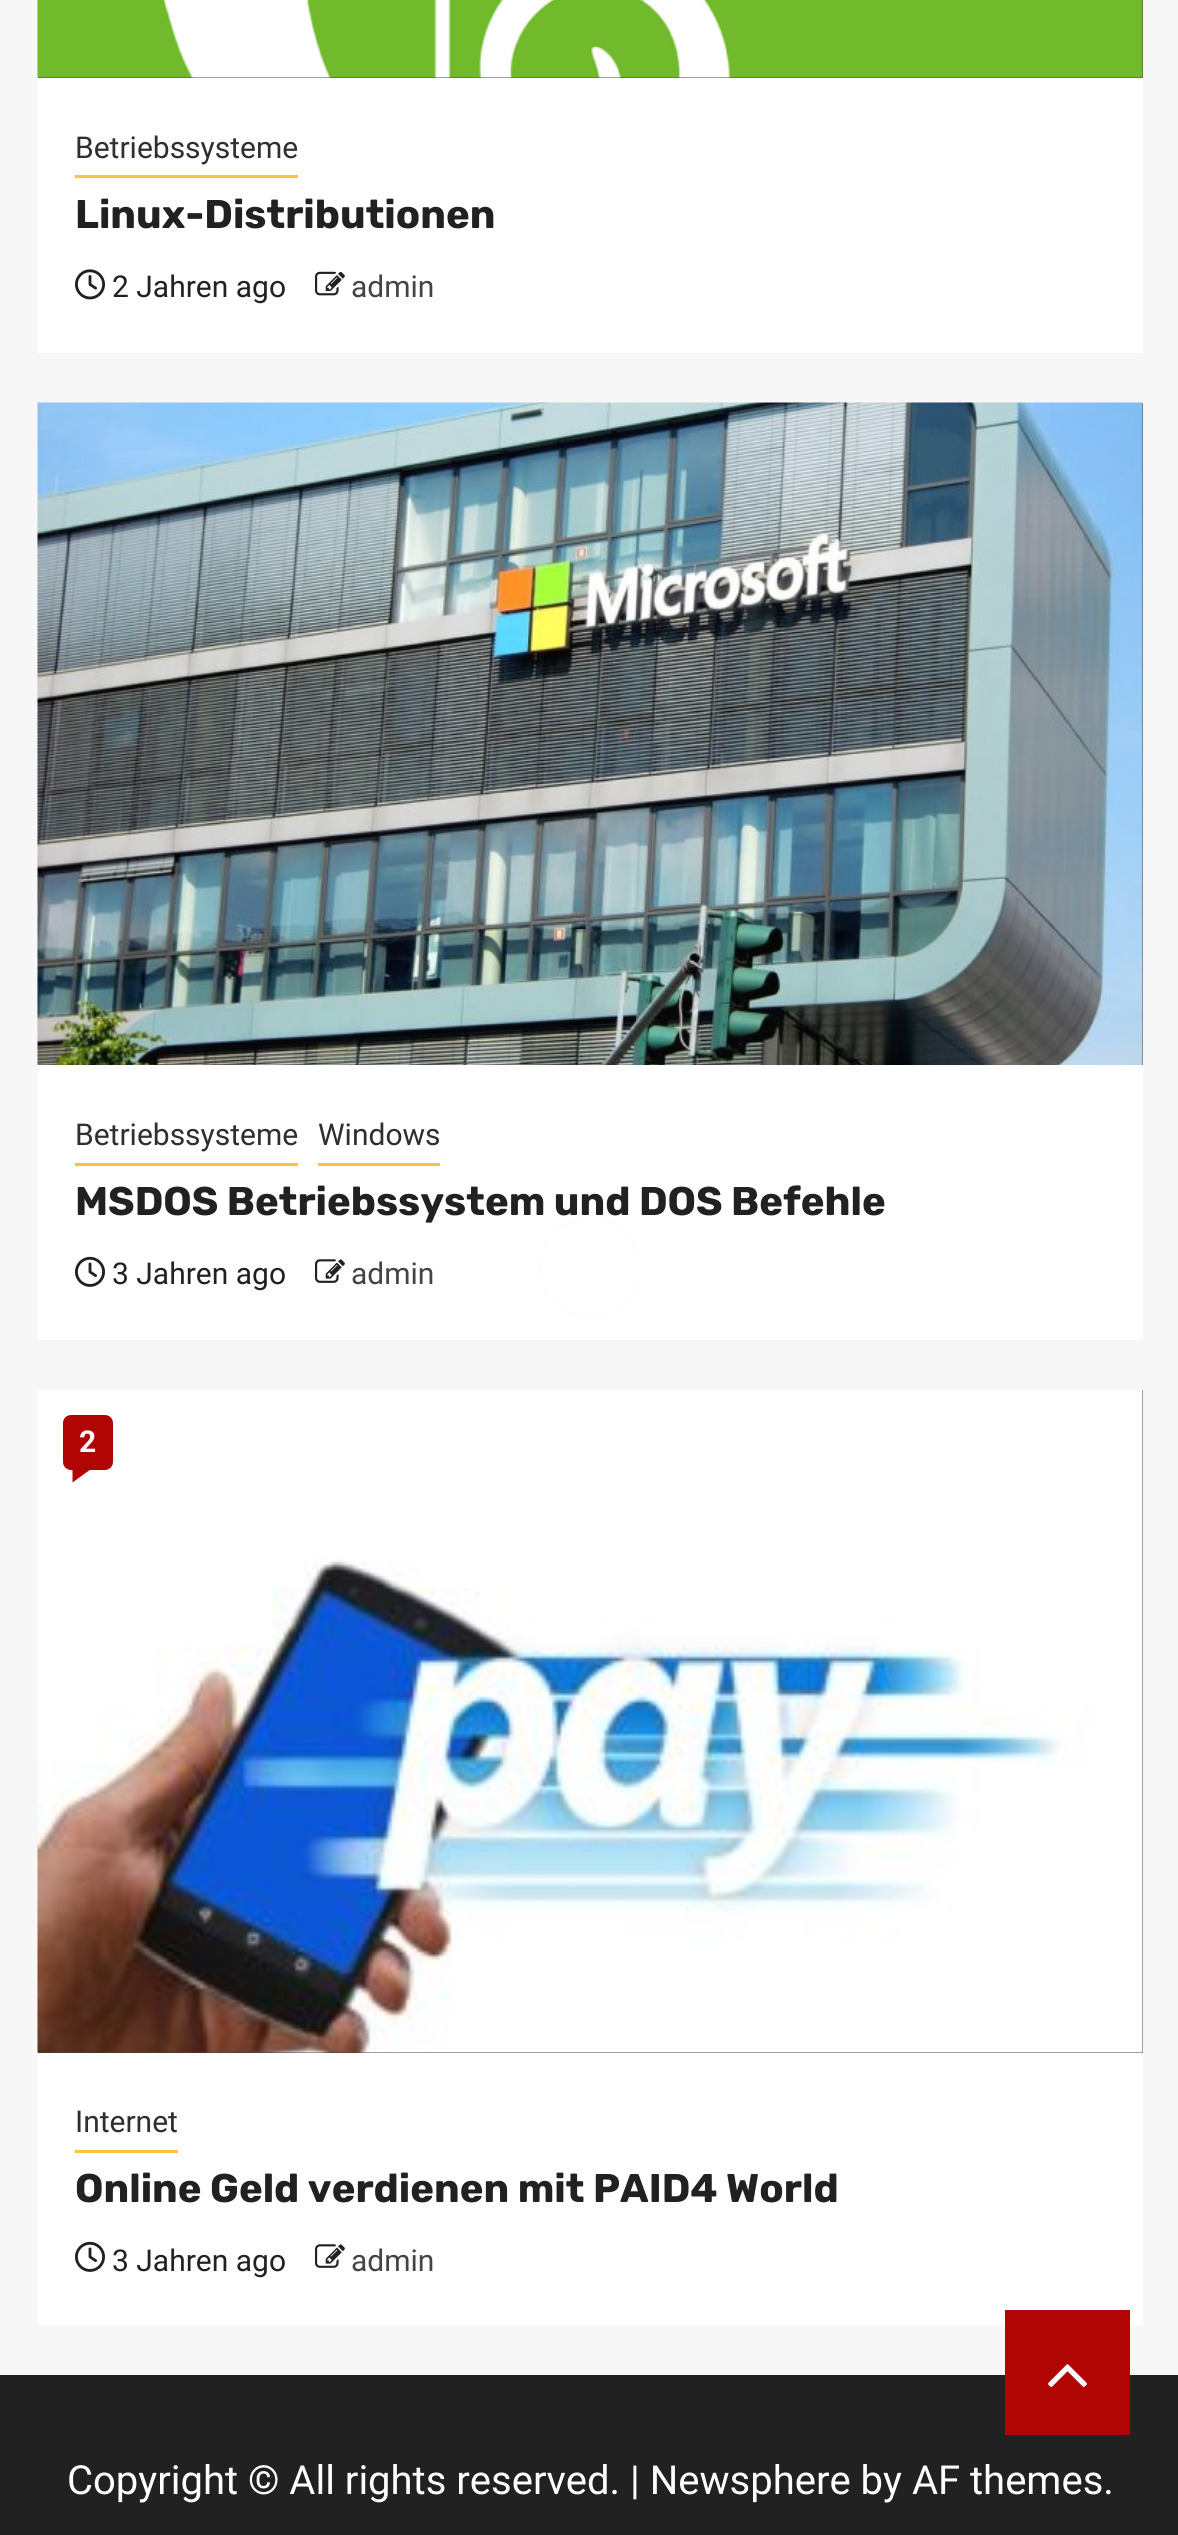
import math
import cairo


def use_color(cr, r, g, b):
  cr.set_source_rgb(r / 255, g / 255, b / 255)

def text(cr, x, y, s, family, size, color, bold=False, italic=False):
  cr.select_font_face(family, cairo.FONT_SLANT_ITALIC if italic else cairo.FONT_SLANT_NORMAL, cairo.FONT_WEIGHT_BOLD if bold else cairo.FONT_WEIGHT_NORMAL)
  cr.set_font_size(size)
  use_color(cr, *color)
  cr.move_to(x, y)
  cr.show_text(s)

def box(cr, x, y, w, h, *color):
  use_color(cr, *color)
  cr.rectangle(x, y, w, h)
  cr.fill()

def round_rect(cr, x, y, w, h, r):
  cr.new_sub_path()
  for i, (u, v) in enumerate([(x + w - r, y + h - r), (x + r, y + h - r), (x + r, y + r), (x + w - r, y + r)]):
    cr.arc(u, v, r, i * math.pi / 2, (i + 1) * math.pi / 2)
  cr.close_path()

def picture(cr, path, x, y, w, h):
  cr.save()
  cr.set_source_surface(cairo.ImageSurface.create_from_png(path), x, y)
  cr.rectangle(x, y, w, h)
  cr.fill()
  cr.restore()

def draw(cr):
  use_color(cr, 247, 247, 247)
  cr.paint()
  box(cr, 38, 78, 1105, 275, 255, 255, 255)
  box(cr, 38, 0, 1105, 78, 68, 68, 68)
  picture(cr, "img_01.png", 37, 0, 1106, 78)
  box(cr, 75, 175, 223, 3, 255, 192, 67)
  picture(cr, "img_02.png", 75, 269, 30, 31)
  picture(cr, "img_03.png", 315, 271, 30, 25)
  box(cr, 38, 1065, 1105, 275, 255, 255, 255)
  box(cr, 1142, 403, 1, 662, 68, 68, 68)
  picture(cr, "img_04.png", 37, 402, 1106, 663)
  box(cr, 75, 1163, 223, 3, 255, 192, 67)
  box(cr, 318, 1163, 122, 3, 255, 192, 67)
  picture(cr, "img_05.png", 75, 1256, 30, 31)
  picture(cr, "img_06.png", 315, 1259, 30, 24)
  box(cr, 38, 2053, 1105, 272, 255, 255, 255)
  box(cr, 38, 1390, 1105, 663, 68, 68, 68)
  picture(cr, "img_07.png", 37, 1390, 1106, 663)
  use_color(cr, 177, 5, 5)
  round_rect(cr, 63, 1415, 50, 55, 8)
  cr.fill()
  cr.new_path()
  cr.move_to(72.5, 1462.5)
  cr.line_to(100, 1462.5)
  cr.line_to(72.5, 1482.5)
  cr.close_path()
  cr.fill()
  box(cr, 75, 2150, 103, 3, 255, 192, 67)
  picture(cr, "img_05.png", 75, 2241, 30, 31)
  picture(cr, "img_06.png", 315, 2244, 30, 24)
  box(cr, 0, 2375, 1178, 160, 33, 33, 33)
  box(cr, 1005, 2310, 125, 125, 177, 5, 5)
  picture(cr, "img_08.png", 1048, 2364, 39, 23)
  text(cr, 75, 158, "Betriebssysteme", "Roboto", 30, (47, 47, 47))
  text(cr, 75, 228, "Linux-Distributionen", "Rubik", 40, (33, 33, 33), bold=True)
  text(cr, 112, 297, "2 Jahren ago", "Roboto", 30, (33, 33, 33))
  text(cr, 351, 297, "admin", "Roboto", 30, (68, 68, 68))
  text(cr, 75, 1145, "Betriebssysteme", "Roboto", 30, (47, 47, 47))
  text(cr, 318, 1145, "Windows", "Roboto", 30, (47, 47, 47))
  text(cr, 75, 1215, "MSDOS Betriebssystem und DOS Befehle", "Rubik", 40, (33, 33, 33), bold=True)
  text(cr, 112, 1284, "3 Jahren ago", "Roboto", 30, (33, 33, 33))
  text(cr, 351, 1284, "admin", "Roboto", 30, (68, 68, 68))
  text(cr, 79, 1452, "2", "Roboto", 30, (255, 255, 255), bold=True)
  text(cr, 75, 2132, "Internet", "Roboto", 30, (47, 47, 47))
  text(cr, 75, 2202, "Online Geld verdienen mit PAID4 World", "Rubik", 40, (33, 33, 33), bold=True)
  text(cr, 112, 2271, "3 Jahren ago", "Roboto", 30, (33, 33, 33))
  text(cr, 351, 2271, "admin", "Roboto", 30, (68, 68, 68))
  text(cr, 67, 2494, "Copyright © All rights reserved. | Newsphere by AF themes.", "Roboto", 40, (255, 255, 255))
  cr.new_path()
  cr.arc(590.5, 1267.5, 50, 0, 2 * math.pi)
  use_color(cr, 255, 254, 251)
  cr.set_line_width(5)
  cr.stroke()


surface = cairo.ImageSurface(cairo.FORMAT_RGB24, 1178, 2535)
cr = cairo.Context(surface)
options = cairo.FontOptions()
options.set_hint_metrics(cairo.HINT_METRICS_OFF)
options.set_hint_style(cairo.HINT_STYLE_NONE)
cr.set_font_options(options)
cr.set_miter_limit(4)
draw(cr)
surface.write_to_png("out.png")
